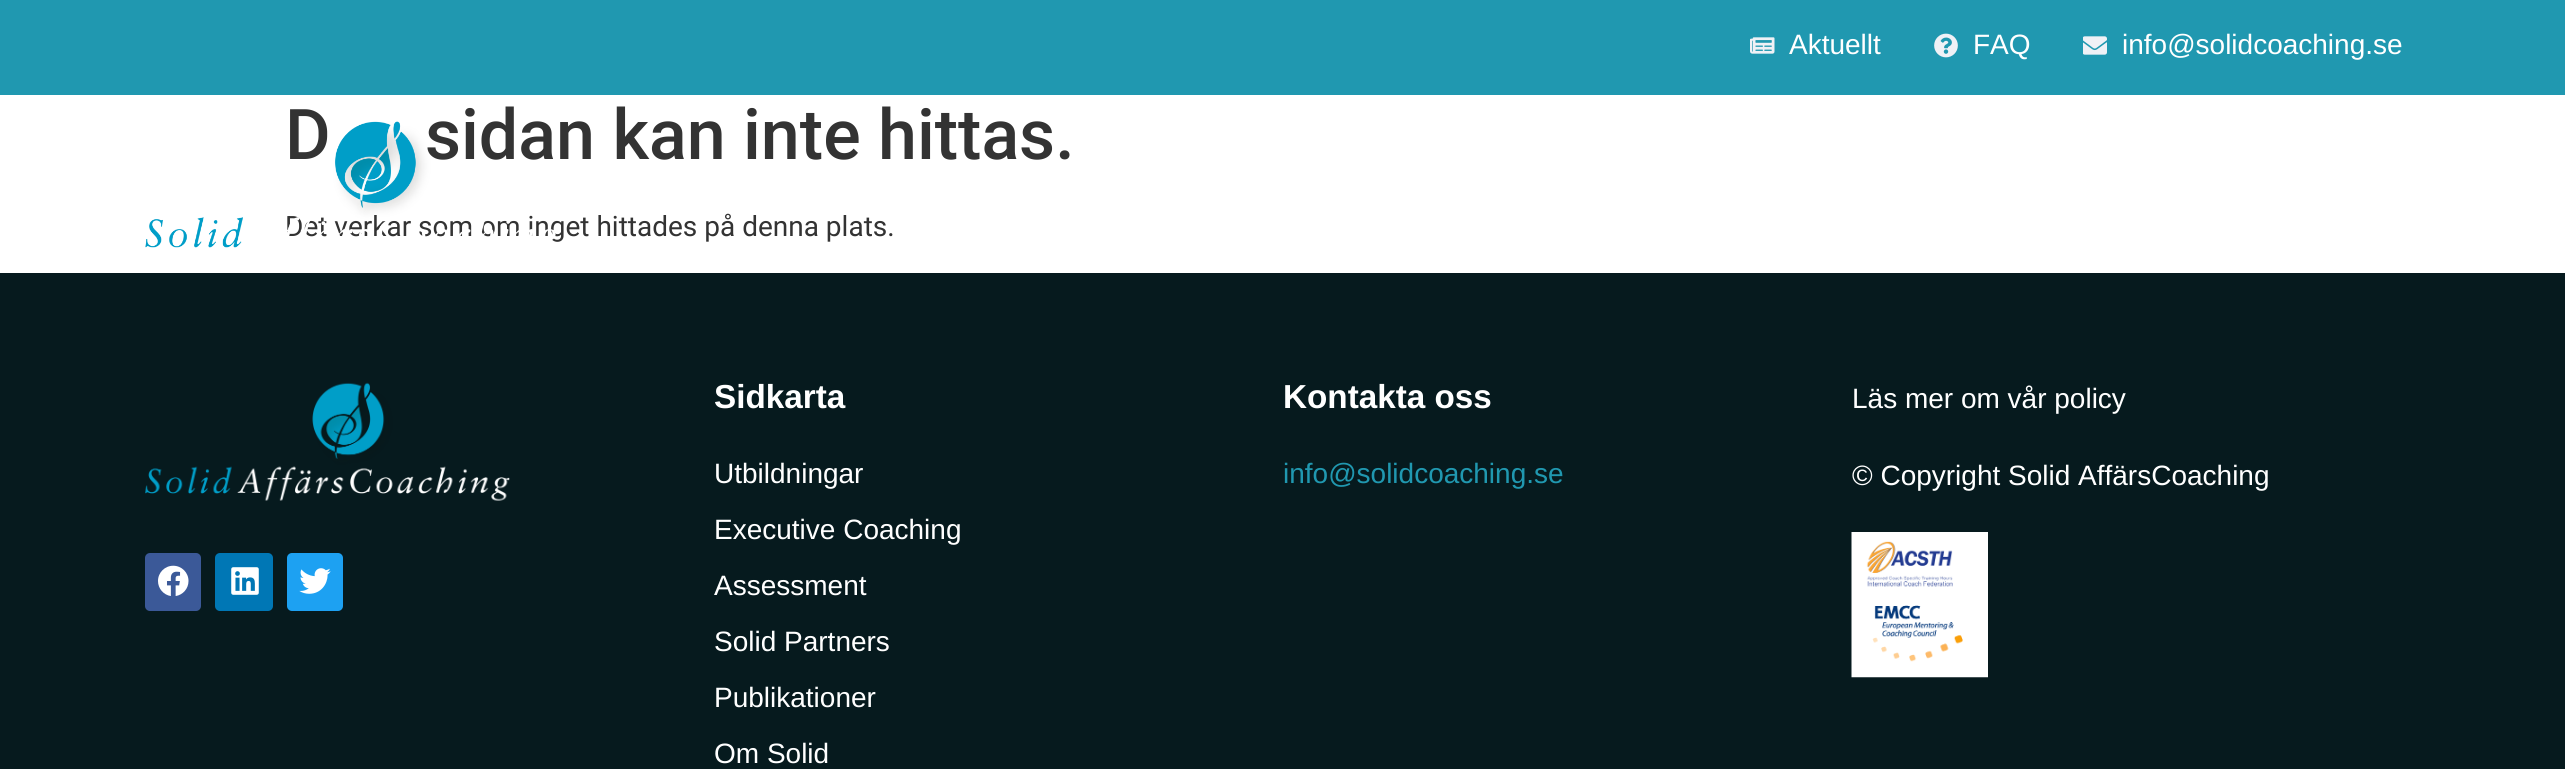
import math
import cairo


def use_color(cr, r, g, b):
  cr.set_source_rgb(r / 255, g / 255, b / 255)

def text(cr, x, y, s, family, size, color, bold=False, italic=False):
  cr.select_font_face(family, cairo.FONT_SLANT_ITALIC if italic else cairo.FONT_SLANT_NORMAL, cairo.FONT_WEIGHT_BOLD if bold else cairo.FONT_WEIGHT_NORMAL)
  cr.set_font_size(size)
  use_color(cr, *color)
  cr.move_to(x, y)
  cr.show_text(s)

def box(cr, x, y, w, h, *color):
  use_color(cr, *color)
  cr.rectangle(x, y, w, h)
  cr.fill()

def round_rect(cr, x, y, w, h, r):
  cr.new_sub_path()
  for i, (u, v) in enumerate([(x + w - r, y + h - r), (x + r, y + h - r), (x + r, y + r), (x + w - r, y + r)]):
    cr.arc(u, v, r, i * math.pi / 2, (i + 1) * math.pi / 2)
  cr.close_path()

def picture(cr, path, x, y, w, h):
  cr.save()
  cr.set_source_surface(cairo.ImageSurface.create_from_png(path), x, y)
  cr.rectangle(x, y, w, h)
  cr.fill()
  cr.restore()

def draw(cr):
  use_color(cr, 255, 255, 255)
  cr.paint()
  box(cr, 0, 0, 2565, 95, 32, 152, 176)
  picture(cr, "img_01.png", 1750, 37, 25, 17)
  picture(cr, "img_02.png", 1934, 33, 24, 25)
  picture(cr, "img_03.png", 2083, 36, 24, 19)
  box(cr, 0, 273, 2565, 496, 6, 26, 30)
  picture(cr, "img_05.png", 145, 382, 365, 119)
  use_color(cr, 59, 89, 152)
  round_rect(cr, 145, 553, 56, 58, 5)
  cr.fill()
  picture(cr, "img_06.png", 158, 565, 31, 31)
  use_color(cr, 0, 119, 181)
  round_rect(cr, 215, 553, 58, 58, 5)
  cr.fill()
  picture(cr, "img_07.png", 231, 567, 28, 28)
  use_color(cr, 29, 161, 242)
  round_rect(cr, 287, 553, 56, 58, 5)
  cr.fill()
  picture(cr, "img_08.png", 299, 568, 32, 26)
  picture(cr, "img_09.png", 1851, 532, 137, 146)
  text(cr, 1789, 54, "Aktuellt", "Liberation Sans", 28, (255, 255, 255))
  text(cr, 1973, 54, "FAQ", "Liberation Sans", 28, (255, 255, 255))
  text(cr, 2122, 54, "info@solidcoaching.se", "Liberation Sans", 28, (255, 255, 255))
  text(cr, 285, 159, "D", "Roboto Medium", 70, (51, 51, 51))
  text(cr, 425, 159, "sidan kan inte hittas.", "Roboto Medium", 70, (51, 51, 51))
  text(cr, 285, 236, "Det verkar som om inget hittades på denna plats.", "Roboto", 28, (51, 51, 51))
  picture(cr, "img_04.png", 145, 121, 411, 127)
  text(cr, 714, 408, "Sidkarta", "Liberation Sans", 33.25, (255, 255, 255), bold=True)
  text(cr, 714, 483, "Utbildningar", "Liberation Sans", 28, (255, 255, 255))
  text(cr, 714, 539, "Executive Coaching", "Liberation Sans", 28, (255, 255, 255))
  text(cr, 714, 595, "Assessment", "Liberation Sans", 28, (255, 255, 255))
  text(cr, 714, 651, "Solid Partners", "Liberation Sans", 28, (255, 255, 255))
  text(cr, 714, 707, "Publikationer", "Liberation Sans", 28, (255, 255, 255))
  text(cr, 714, 763, "Om Solid", "Liberation Sans", 28, (255, 255, 255))
  text(cr, 1283, 408, "Kontakta oss", "Liberation Sans", 33.25, (255, 255, 255), bold=True)
  text(cr, 1283, 483, "info@solidcoaching.se", "Liberation Sans", 28, (32, 152, 176))
  text(cr, 1852, 408, "Läs mer om vår policy", "Liberation Sans", 28, (255, 255, 255))
  text(cr, 1852, 485, "© Copyright Solid AffärsCoaching", "Liberation Sans", 28, (255, 255, 255))


surface = cairo.ImageSurface(cairo.FORMAT_RGB24, 2565, 769)
cr = cairo.Context(surface)
options = cairo.FontOptions()
options.set_hint_metrics(cairo.HINT_METRICS_OFF)
options.set_hint_style(cairo.HINT_STYLE_NONE)
cr.set_font_options(options)
cr.set_miter_limit(4)
draw(cr)
surface.write_to_png("out.png")
